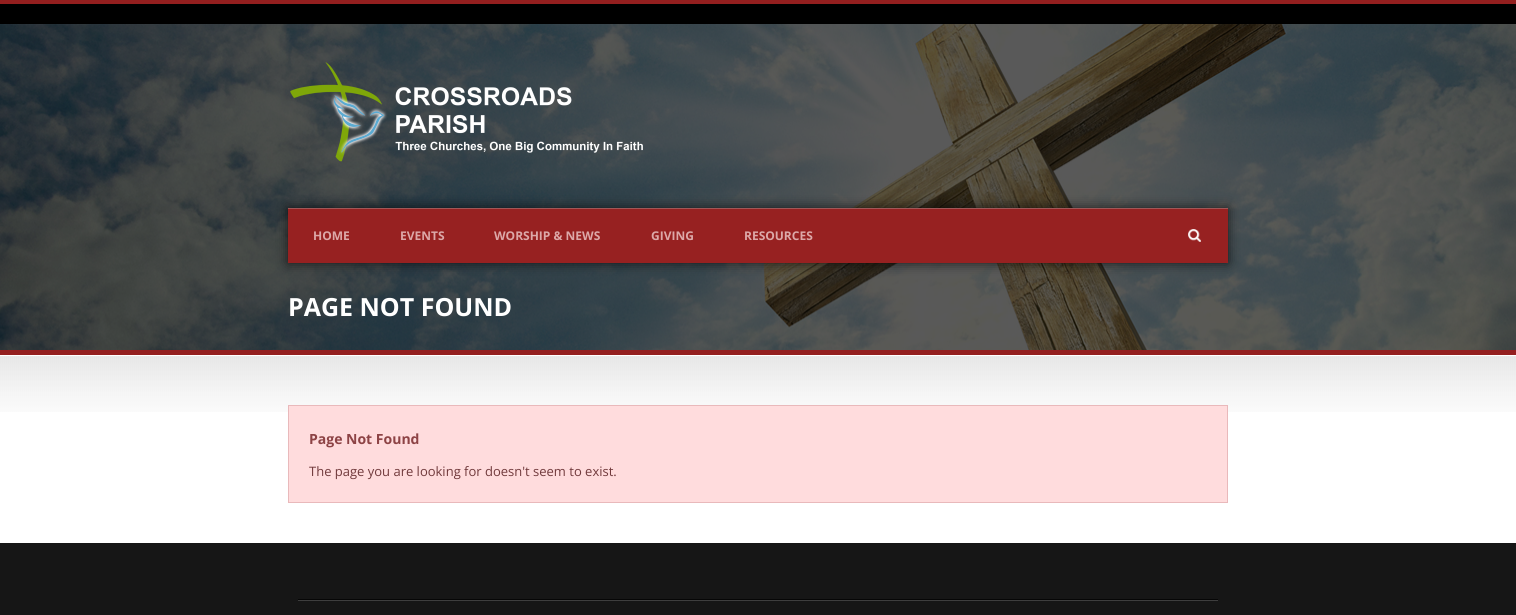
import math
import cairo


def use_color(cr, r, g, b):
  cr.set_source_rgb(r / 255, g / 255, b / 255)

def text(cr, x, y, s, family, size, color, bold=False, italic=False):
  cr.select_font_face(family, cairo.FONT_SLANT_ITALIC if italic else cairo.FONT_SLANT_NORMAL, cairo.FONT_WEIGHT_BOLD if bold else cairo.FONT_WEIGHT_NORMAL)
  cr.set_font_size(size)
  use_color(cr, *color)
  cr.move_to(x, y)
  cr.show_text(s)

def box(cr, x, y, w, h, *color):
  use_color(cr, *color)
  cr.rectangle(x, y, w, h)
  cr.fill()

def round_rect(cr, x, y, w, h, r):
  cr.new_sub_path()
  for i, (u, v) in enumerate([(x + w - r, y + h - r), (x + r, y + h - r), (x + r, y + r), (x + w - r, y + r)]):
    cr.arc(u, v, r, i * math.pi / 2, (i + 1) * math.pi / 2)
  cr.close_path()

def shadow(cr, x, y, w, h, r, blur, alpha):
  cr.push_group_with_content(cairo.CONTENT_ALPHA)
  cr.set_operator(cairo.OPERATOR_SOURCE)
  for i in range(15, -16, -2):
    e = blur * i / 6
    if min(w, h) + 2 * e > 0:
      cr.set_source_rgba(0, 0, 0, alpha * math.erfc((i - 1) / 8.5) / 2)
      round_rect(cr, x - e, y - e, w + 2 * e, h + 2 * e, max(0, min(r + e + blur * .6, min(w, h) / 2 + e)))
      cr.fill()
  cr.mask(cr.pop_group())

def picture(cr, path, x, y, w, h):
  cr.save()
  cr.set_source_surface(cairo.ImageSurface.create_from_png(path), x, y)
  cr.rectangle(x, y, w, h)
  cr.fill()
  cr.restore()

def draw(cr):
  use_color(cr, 255, 255, 255)
  cr.paint()
  box(cr, 0, 4, 1516, 20, 0, 0, 0)
  box(cr, 0, 0, 1516, 4, 147, 31, 31)
  picture(cr, "img_01.png", 0, 24, 1516, 326)
  picture(cr, "img_02.png", 290, 62, 353, 100)
  use_color(cr, 0, 0, 0)
  shadow(cr, 288, 208, 940, 55, 0, 6, 0.7)
  box(cr, 288, 209, 940, 54, 151, 33, 33)
  box(cr, 288, 208, 940, 1, 160, 88, 88)
  picture(cr, "img_03.png", 1188, 229, 13, 13)
  box(cr, 0, 350, 1516, 5, 147, 31, 31)
  picture(cr, "img_04.png", 0, 356, 1516, 56)
  use_color(cr, 255, 220, 221)
  cr.rectangle(288.5, 405.5, 939, 97)
  cr.fill_preserve()
  use_color(cr, 233, 185, 187)
  cr.set_line_width(1)
  cr.stroke()
  box(cr, 0, 543, 1516, 72, 22, 22, 22)
  box(cr, 298, 599, 920, 1, 6, 6, 6)
  box(cr, 298, 600, 920, 1, 62, 62, 62)
  text(cr, 313, 240, "HOME", "Open Sans", 12, (220, 168, 168), bold=True)
  text(cr, 400, 240, "EVENTS", "Open Sans", 12, (220, 168, 168), bold=True)
  text(cr, 494, 240, "WORSHIP & NEWS", "Open Sans", 12, (220, 168, 168), bold=True)
  text(cr, 651, 240, "GIVING", "Open Sans", 12, (220, 168, 168), bold=True)
  text(cr, 744, 240, "RESOURCES", "Open Sans", 12, (220, 168, 168), bold=True)
  text(cr, 288, 316, "PAGE NOT FOUND", "Open Sans", 25, (255, 255, 255), bold=True)
  text(cr, 309, 444, "Page Not Found", "Open Sans", 14, (141, 67, 69), bold=True)
  text(cr, 309, 476, "The page you are looking for doesn't seem to exist.", "Open Sans", 13, (113, 58, 60))


surface = cairo.ImageSurface(cairo.FORMAT_RGB24, 1516, 615)
cr = cairo.Context(surface)
options = cairo.FontOptions()
options.set_hint_metrics(cairo.HINT_METRICS_OFF)
options.set_hint_style(cairo.HINT_STYLE_NONE)
cr.set_font_options(options)
cr.set_miter_limit(4)
draw(cr)
surface.write_to_png("out.png")
